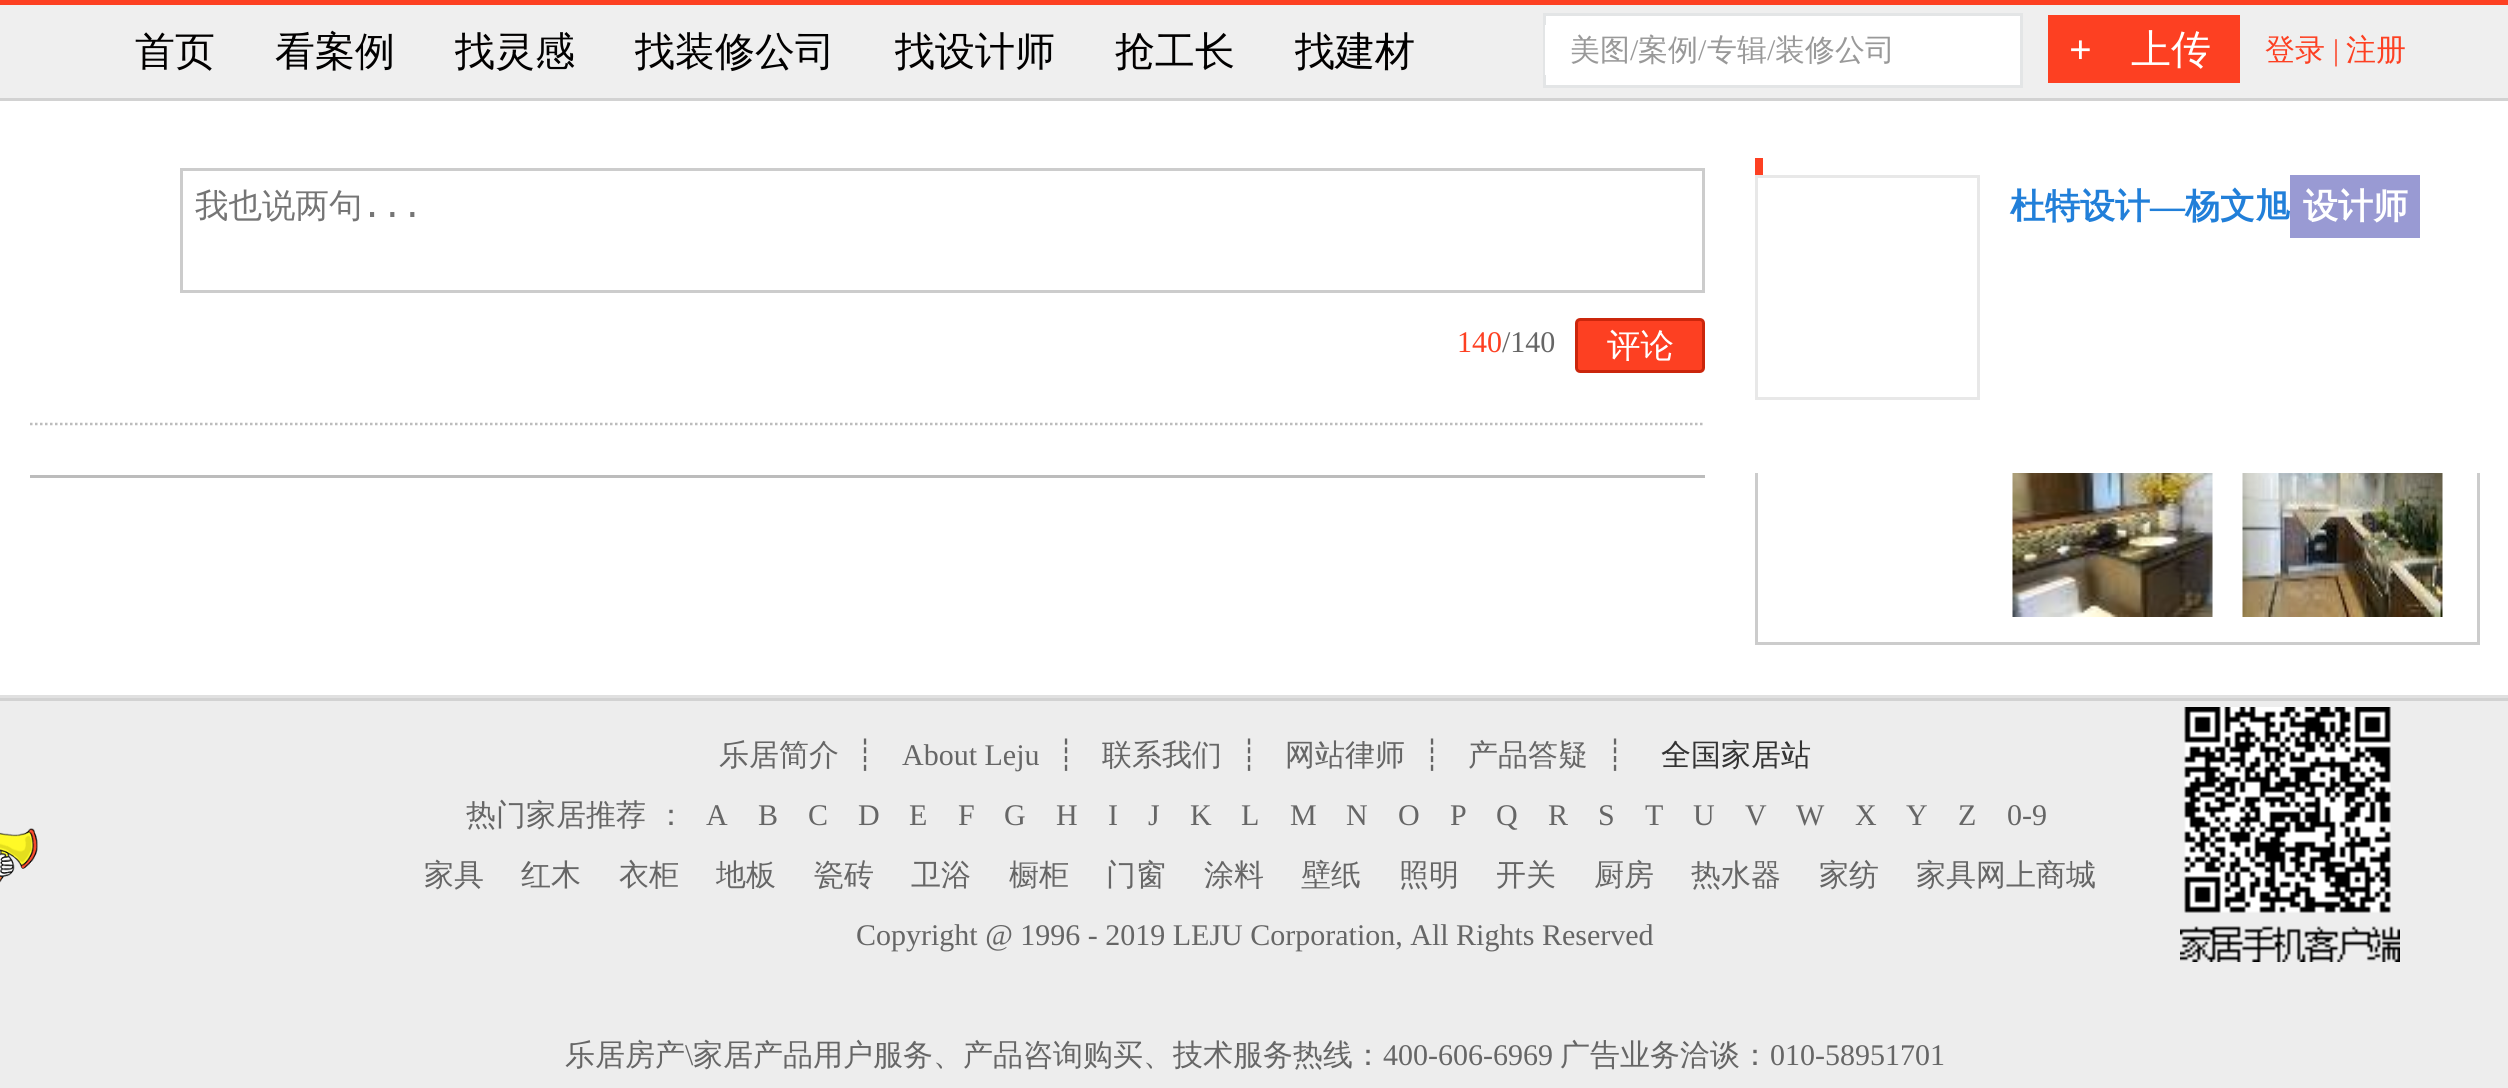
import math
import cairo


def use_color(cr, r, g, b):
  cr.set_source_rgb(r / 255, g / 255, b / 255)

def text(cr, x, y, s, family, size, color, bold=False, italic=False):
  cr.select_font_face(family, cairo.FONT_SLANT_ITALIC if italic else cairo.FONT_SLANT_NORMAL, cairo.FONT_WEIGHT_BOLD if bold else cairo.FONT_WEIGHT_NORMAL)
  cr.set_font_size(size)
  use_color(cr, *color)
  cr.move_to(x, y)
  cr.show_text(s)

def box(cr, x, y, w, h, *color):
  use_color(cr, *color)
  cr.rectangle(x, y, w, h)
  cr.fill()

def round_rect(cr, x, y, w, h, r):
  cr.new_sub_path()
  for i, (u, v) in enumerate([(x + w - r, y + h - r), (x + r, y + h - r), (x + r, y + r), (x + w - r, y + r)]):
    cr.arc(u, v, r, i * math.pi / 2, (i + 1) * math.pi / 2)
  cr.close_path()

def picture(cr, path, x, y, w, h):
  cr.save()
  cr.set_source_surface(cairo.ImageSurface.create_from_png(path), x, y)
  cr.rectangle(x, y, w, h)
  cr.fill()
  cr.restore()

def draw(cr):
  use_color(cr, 255, 255, 255)
  cr.paint()
  box(cr, 0, 5, 2508, 93, 239, 239, 239)
  box(cr, 0, 0, 2508, 5, 253, 64, 34)
  box(cr, 0, 98, 2508, 3, 210, 210, 210)
  use_color(cr, 255, 255, 255)
  cr.rectangle(1544.5, 14.5, 477, 72)
  cr.fill_preserve()
  use_color(cr, 227, 229, 230)
  cr.set_line_width(3)
  cr.stroke()
  box(cr, 1545, 25, 1, 50, 255, 255, 255)
  box(cr, 2048, 15, 192, 68, 253, 64, 34)
  cr.rectangle(181.5, 169.5, 1522, 122)
  use_color(cr, 204, 204, 204)
  cr.stroke()
  use_color(cr, 253, 64, 34)
  round_rect(cr, 1576.5, 319.5, 127, 52, 3.5)
  cr.fill_preserve()
  use_color(cr, 203, 38, 12)
  cr.stroke()
  cr.new_path()
  cr.move_to(30, 424)
  cr.line_to(1705, 424)
  use_color(cr, 188, 188, 188)
  cr.set_line_width(2.5)
  cr.set_dash([2.5, 2.5])
  cr.stroke()
  box(cr, 30, 475, 1675, 3, 188, 188, 188)
  box(cr, 1755, 158, 8, 17, 253, 64, 34)
  cr.rectangle(1756.5, 391.5, 722, 252)
  use_color(cr, 204, 204, 204)
  cr.set_line_width(3)
  cr.set_dash([])
  cr.stroke()
  box(cr, 1755, 390, 725, 83, 255, 255, 255)
  cr.rectangle(1756.5, 176.5, 222, 222)
  use_color(cr, 232, 232, 232)
  cr.stroke()
  box(cr, 2290, 175, 130, 63, 153, 154, 211)
  picture(cr, "img_01.png", 2012, 473, 201, 144)
  picture(cr, "img_02.png", 2242, 473, 201, 144)
  box(cr, 0, 695, 2508, 3, 224, 224, 224)
  box(cr, 0, 701, 2508, 387, 237, 237, 237)
  box(cr, 0, 698, 2508, 3, 210, 210, 210)
  picture(cr, "img_03.png", 2180, 707, 220, 255)
  picture(cr, "img_04.png", 0, 828, 38, 55)
  text(cr, 135, 65, "首页", "WenQuanYi Zen Hei Medium", 40, (1, 0, 0))
  text(cr, 275, 65, "看案例", "WenQuanYi Zen Hei Medium", 40, (1, 0, 0))
  text(cr, 455, 65, "找灵感", "WenQuanYi Zen Hei Medium", 40, (1, 0, 0))
  text(cr, 635, 65, "找装修公司", "WenQuanYi Zen Hei Medium", 40, (1, 0, 0))
  text(cr, 895, 65, "找设计师", "WenQuanYi Zen Hei Medium", 40, (1, 0, 0))
  text(cr, 1115, 65, "抢工长", "WenQuanYi Zen Hei Medium", 40, (1, 0, 0))
  text(cr, 1295, 65, "找建材", "WenQuanYi Zen Hei Medium", 40, (1, 0, 0))
  text(cr, 1570, 60, "美图", "WenQuanYi Zen Hei Medium", 30, (153, 153, 153))
  text(cr, 1630, 60, "/", "Liberation Serif", 30, (153, 153, 153))
  text(cr, 1638, 60, "案例", "WenQuanYi Zen Hei Medium", 30, (153, 153, 153))
  text(cr, 1698, 60, "/", "Liberation Serif", 30, (153, 153, 153))
  text(cr, 1707, 60, "专辑", "WenQuanYi Zen Hei Medium", 30, (153, 153, 153))
  text(cr, 1767, 60, "/", "Liberation Serif", 30, (153, 153, 153))
  text(cr, 1775, 60, "装修公司", "WenQuanYi Zen Hei Medium", 30, (153, 153, 153))
  text(cr, 2069, 63, "+", "Liberation Serif", 40, (255, 255, 255), bold=True)
  text(cr, 2131, 63, "上传", "WenQuanYi Zen Hei Medium", 40, (255, 255, 255))
  text(cr, 2265, 60, "登录", "WenQuanYi Zen Hei Medium", 30, (253, 64, 34))
  text(cr, 2333, 60, "|", "Liberation Serif", 30, (253, 64, 34))
  text(cr, 2346, 60, "注册", "WenQuanYi Zen Hei Medium", 30, (253, 64, 34))
  text(cr, 195, 217, "我也说两句", "WenQuanYi Zen Hei Medium", 33.5, (117, 117, 117))
  text(cr, 362, 217, "...", "DejaVu Sans Mono", 33.5, (117, 117, 117))
  text(cr, 1457, 352, "140", "Liberation Serif", 30, (253, 64, 34))
  text(cr, 1502, 352, "/140", "Liberation Serif", 30, (102, 102, 102))
  text(cr, 1607, 357, "评论", "WenQuanYi Zen Hei Medium", 33.5, (255, 255, 255))
  text(cr, 2010, 218, "杜特设计", "WenQuanYi Zen Hei", 35, (33, 127, 217), bold=True)
  text(cr, 2150, 218, "—", "Liberation Serif", 35, (33, 127, 217), bold=True)
  text(cr, 2185, 218, "杨文旭", "WenQuanYi Zen Hei", 35, (33, 127, 217), bold=True)
  text(cr, 2303, 218, "设计师", "WenQuanYi Zen Hei", 35, (255, 255, 255), bold=True)
  text(cr, 719, 765, "乐居简介", "WenQuanYi Zen Hei Medium", 30, (102, 102, 102))
  text(cr, 856, 765, "┊", "DejaVu Sans", 30, (102, 102, 102))
  text(cr, 902, 765, "About Leju", "Liberation Serif", 30, (102, 102, 102))
  text(cr, 1057, 765, "┊", "DejaVu Sans", 30, (102, 102, 102))
  text(cr, 1102, 765, "联系我们", "WenQuanYi Zen Hei Medium", 30, (102, 102, 102))
  text(cr, 1240, 765, "┊", "DejaVu Sans", 30, (102, 102, 102))
  text(cr, 1285, 765, "网站律师", "WenQuanYi Zen Hei Medium", 30, (102, 102, 102))
  text(cr, 1423, 765, "┊", "DejaVu Sans", 30, (102, 102, 102))
  text(cr, 1468, 765, "产品答疑", "WenQuanYi Zen Hei Medium", 30, (102, 102, 102))
  text(cr, 1606, 765, "┊", "DejaVu Sans", 30, (102, 102, 102))
  text(cr, 1661, 765, "全国家居站", "WenQuanYi Zen Hei Medium", 30, (51, 51, 51))
  text(cr, 466, 825, "热门家居推荐", "WenQuanYi Zen Hei Medium", 30, (102, 102, 102))
  text(cr, 656, 825, "：", "WenQuanYi Zen Hei Medium", 30, (102, 102, 102))
  text(cr, 706, 825, "A", "Liberation Serif", 30, (102, 102, 102))
  text(cr, 758, 825, "B", "Liberation Serif", 30, (102, 102, 102))
  text(cr, 808, 825, "C", "Liberation Serif", 30, (102, 102, 102))
  text(cr, 858, 825, "D", "Liberation Serif", 30, (102, 102, 102))
  text(cr, 909, 825, "E", "Liberation Serif", 30, (102, 102, 102))
  text(cr, 958, 825, "F", "Liberation Serif", 30, (102, 102, 102))
  text(cr, 1004, 825, "G", "Liberation Serif", 30, (102, 102, 102))
  text(cr, 1056, 825, "H", "Liberation Serif", 30, (102, 102, 102))
  text(cr, 1108, 825, "I", "Liberation Serif", 30, (102, 102, 102))
  text(cr, 1148, 825, "J", "Liberation Serif", 30, (102, 102, 102))
  text(cr, 1190, 825, "K", "Liberation Serif", 30, (102, 102, 102))
  text(cr, 1241, 825, "L", "Liberation Serif", 30, (102, 102, 102))
  text(cr, 1290, 825, "M", "Liberation Serif", 30, (102, 102, 102))
  text(cr, 1346, 825, "N", "Liberation Serif", 30, (102, 102, 102))
  text(cr, 1398, 825, "O", "Liberation Serif", 30, (102, 102, 102))
  text(cr, 1450, 825, "P", "Liberation Serif", 30, (102, 102, 102))
  text(cr, 1496, 825, "Q", "Liberation Serif", 30, (102, 102, 102))
  text(cr, 1548, 825, "R", "Liberation Serif", 30, (102, 102, 102))
  text(cr, 1598, 825, "S", "Liberation Serif", 30, (102, 102, 102))
  text(cr, 1645, 825, "T", "Liberation Serif", 30, (102, 102, 102))
  text(cr, 1693, 825, "U", "Liberation Serif", 30, (102, 102, 102))
  text(cr, 1745, 825, "V", "Liberation Serif", 30, (102, 102, 102))
  text(cr, 1796, 825, "W", "Liberation Serif", 30, (102, 102, 102))
  text(cr, 1855, 825, "X", "Liberation Serif", 30, (102, 102, 102))
  text(cr, 1906, 825, "Y", "Liberation Serif", 30, (102, 102, 102))
  text(cr, 1958, 825, "Z", "Liberation Serif", 30, (102, 102, 102))
  text(cr, 2007, 825, "0-9", "Liberation Serif", 30, (102, 102, 102))
  text(cr, 424, 885, "家具", "WenQuanYi Zen Hei Medium", 30, (102, 102, 102))
  text(cr, 521, 885, "红木", "WenQuanYi Zen Hei Medium", 30, (102, 102, 102))
  text(cr, 619, 885, "衣柜", "WenQuanYi Zen Hei Medium", 30, (102, 102, 102))
  text(cr, 716, 885, "地板", "WenQuanYi Zen Hei Medium", 30, (102, 102, 102))
  text(cr, 814, 885, "瓷砖", "WenQuanYi Zen Hei Medium", 30, (102, 102, 102))
  text(cr, 911, 885, "卫浴", "WenQuanYi Zen Hei Medium", 30, (102, 102, 102))
  text(cr, 1009, 885, "橱柜", "WenQuanYi Zen Hei Medium", 30, (102, 102, 102))
  text(cr, 1106, 885, "门窗", "WenQuanYi Zen Hei Medium", 30, (102, 102, 102))
  text(cr, 1204, 885, "涂料", "WenQuanYi Zen Hei Medium", 30, (102, 102, 102))
  text(cr, 1301, 885, "壁纸", "WenQuanYi Zen Hei Medium", 30, (102, 102, 102))
  text(cr, 1399, 885, "照明", "WenQuanYi Zen Hei Medium", 30, (102, 102, 102))
  text(cr, 1496, 885, "开关", "WenQuanYi Zen Hei Medium", 30, (102, 102, 102))
  text(cr, 1594, 885, "厨房", "WenQuanYi Zen Hei Medium", 30, (102, 102, 102))
  text(cr, 1691, 885, "热水器", "WenQuanYi Zen Hei Medium", 30, (102, 102, 102))
  text(cr, 1819, 885, "家纺", "WenQuanYi Zen Hei Medium", 30, (102, 102, 102))
  text(cr, 1916, 885, "家具网上商城", "WenQuanYi Zen Hei Medium", 30, (102, 102, 102))
  text(cr, 856, 945, "Copyright @ 1996 - 2019 LEJU Corporation, All Rights Reserved", "Liberation Serif", 30, (102, 102, 102))
  text(cr, 565, 1065, "乐居房产", "WenQuanYi Zen Hei Medium", 30, (102, 102, 102))
  text(cr, 685, 1065, "\\", "Liberation Serif", 30, (102, 102, 102))
  text(cr, 693, 1065, "家居产品用户服务、产品咨询购买、技术服务热线：", "WenQuanYi Zen Hei Medium", 30, (102, 102, 102))
  text(cr, 1383, 1065, "400-606-6969", "Liberation Serif", 30, (102, 102, 102))
  text(cr, 1560, 1065, "广告业务洽谈：", "WenQuanYi Zen Hei Medium", 30, (102, 102, 102))
  text(cr, 1770, 1065, "010-58951701", "Liberation Serif", 30, (102, 102, 102))


surface = cairo.ImageSurface(cairo.FORMAT_RGB24, 2508, 1088)
cr = cairo.Context(surface)
options = cairo.FontOptions()
options.set_hint_metrics(cairo.HINT_METRICS_OFF)
options.set_hint_style(cairo.HINT_STYLE_NONE)
cr.set_font_options(options)
cr.set_miter_limit(4)
draw(cr)
surface.write_to_png("out.png")
